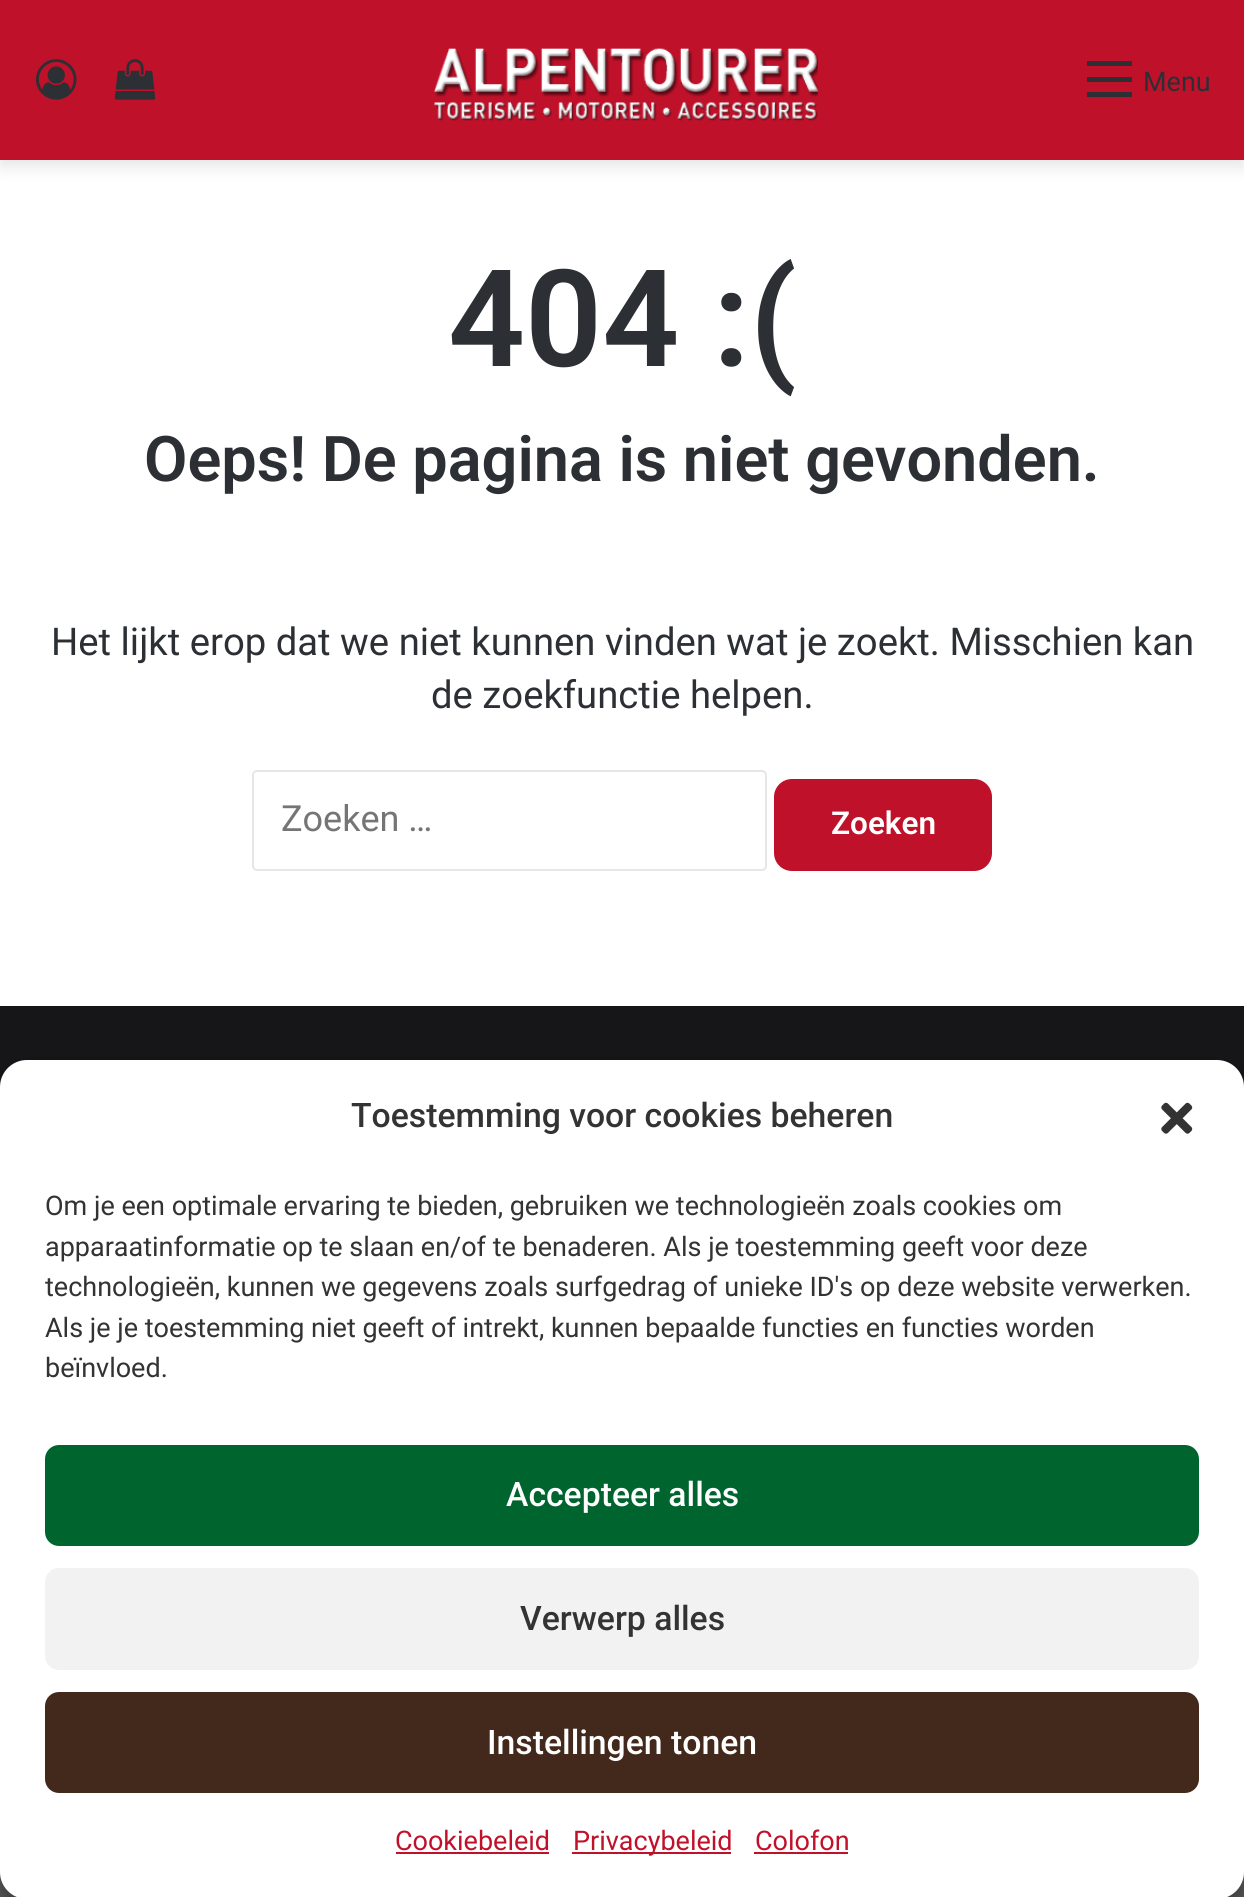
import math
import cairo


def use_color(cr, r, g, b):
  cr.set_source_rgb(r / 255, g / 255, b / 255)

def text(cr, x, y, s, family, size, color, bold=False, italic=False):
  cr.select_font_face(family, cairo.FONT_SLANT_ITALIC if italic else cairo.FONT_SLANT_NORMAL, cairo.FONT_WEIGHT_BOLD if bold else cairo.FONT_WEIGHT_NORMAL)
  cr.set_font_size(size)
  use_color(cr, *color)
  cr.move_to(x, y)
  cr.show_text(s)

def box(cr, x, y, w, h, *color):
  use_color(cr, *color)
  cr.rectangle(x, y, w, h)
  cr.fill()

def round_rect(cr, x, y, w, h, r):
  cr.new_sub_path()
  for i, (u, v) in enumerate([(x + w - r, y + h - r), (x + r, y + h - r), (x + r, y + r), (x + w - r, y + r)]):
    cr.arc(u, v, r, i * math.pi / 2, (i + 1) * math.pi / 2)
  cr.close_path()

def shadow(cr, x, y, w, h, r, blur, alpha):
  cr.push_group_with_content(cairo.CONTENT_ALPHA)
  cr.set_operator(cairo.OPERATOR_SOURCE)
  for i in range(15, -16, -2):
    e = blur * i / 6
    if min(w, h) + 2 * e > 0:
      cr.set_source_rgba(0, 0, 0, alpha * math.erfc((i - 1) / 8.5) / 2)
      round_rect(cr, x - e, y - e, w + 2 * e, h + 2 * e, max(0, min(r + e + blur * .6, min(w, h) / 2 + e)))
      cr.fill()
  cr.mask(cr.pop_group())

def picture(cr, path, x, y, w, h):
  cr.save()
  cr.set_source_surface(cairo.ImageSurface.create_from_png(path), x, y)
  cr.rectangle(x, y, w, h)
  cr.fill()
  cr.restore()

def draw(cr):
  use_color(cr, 94, 94, 94)
  cr.paint()
  box(cr, 0, 160, 1244, 846, 255, 255, 255)
  use_color(cr, 0, 0, 0)
  shadow(cr, 0, 7, 1244, 160, 0, 8, 0.1)
  box(cr, 0, 0, 1244, 160, 192, 17, 42)
  picture(cr, "img_01.png", 36, 59, 41, 41)
  picture(cr, "img_02.png", 114, 59, 42, 41)
  picture(cr, "img_03.png", 434, 48, 384, 73)
  box(cr, 1087, 77, 45, 5, 44, 47, 52)
  box(cr, 1087, 61, 45, 5, 44, 47, 52)
  box(cr, 1087, 92, 45, 5, 44, 47, 52)
  round_rect(cr, 253, 771, 513, 99, 4)
  use_color(cr, 230, 230, 230)
  cr.stroke()
  use_color(cr, 192, 17, 42)
  round_rect(cr, 774, 779, 218, 92, 18)
  cr.fill()
  box(cr, 0, 1006, 1244, 81, 22, 22, 25)
  use_color(cr, 0, 0, 0)
  shadow(cr, 0, 1073, 1244, 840, 27, 7, 0.23)
  shadow(cr, 0, 1082, 1244, 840, 27, 22.5, 0.19)
  use_color(cr, 255, 255, 255)
  round_rect(cr, 0, 1060, 1244, 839, 27)
  cr.fill()
  picture(cr, "img_04.png", 1161, 1102, 32, 32)
  use_color(cr, 0, 100, 47)
  round_rect(cr, 46, 1446, 1152, 99, 13)
  cr.fill_preserve()
  cr.stroke()
  use_color(cr, 242, 242, 242)
  round_rect(cr, 46, 1569, 1152, 100, 13)
  cr.fill_preserve()
  cr.stroke()
  use_color(cr, 66, 41, 28)
  round_rect(cr, 46, 1693, 1152, 99, 13)
  cr.fill_preserve()
  cr.stroke()
  box(cr, 396, 1852, 153, 2, 192, 17, 42)
  box(cr, 572, 1852, 159, 2, 192, 17, 42)
  box(cr, 754, 1852, 94, 2, 192, 17, 42)
  text(cr, 1143, 91, "Menu", "Roboto", 27, (44, 47, 52))
  text(cr, 448, 366, "404 :(", "Roboto SemiBold", 135, (44, 47, 52))
  text(cr, 144, 481, "Oeps! De pagina is niet gevonden.", "Roboto SemiBold", 63, (44, 47, 52))
  text(cr, 51, 655, "Het lijkt erop dat we niet kunnen vinden wat je zoekt. Misschien kan", "Roboto", 38.25, (44, 47, 52))
  text(cr, 431, 708, "de zoekfunctie helpen.", "Roboto", 38.25, (44, 47, 52))
  text(cr, 281, 831, "Zoeken …", "Roboto", 36, (117, 117, 117))
  text(cr, 831, 834, "Zoeken", "Roboto SemiBold", 31.5, (255, 255, 255))
  text(cr, 351, 1127, "Toestemming voor cookies beheren", "Roboto Medium", 33.75, (51, 51, 51))
  text(cr, 45, 1215, "Om je een optimale ervaring te bieden, gebruiken we technologieën zoals cookies om", "Roboto", 27, (51, 51, 51))
  text(cr, 45, 1256, "apparaatinformatie op te slaan en/of te benaderen. Als je toestemming geeft voor deze", "Roboto", 27, (51, 51, 51))
  text(cr, 45, 1296, "technologieën, kunnen we gegevens zoals surfgedrag of unieke ID's op deze website verwerken.", "Roboto", 27, (51, 51, 51))
  text(cr, 45, 1337, "Als je je toestemming niet geeft of intrekt, kunnen bepaalde functies en functies worden", "Roboto", 27, (51, 51, 51))
  text(cr, 45, 1377, "beïnvloed.", "Roboto", 27, (51, 51, 51))
  text(cr, 506, 1506, "Accepteer alles", "Roboto Medium", 33.75, (255, 255, 255))
  text(cr, 520, 1630, "Verwerp alles", "Roboto Medium", 33.75, (51, 51, 51))
  text(cr, 487, 1754, "Instellingen tonen", "Roboto Medium", 33.75, (255, 255, 255))
  text(cr, 395, 1850, "Cookiebeleid", "Roboto", 27, (192, 17, 42))
  text(cr, 573, 1850, "Privacybeleid", "Roboto", 27, (192, 17, 42))
  text(cr, 755, 1850, "Colofon", "Roboto", 27, (192, 17, 42))


surface = cairo.ImageSurface(cairo.FORMAT_RGB24, 1244, 1897)
cr = cairo.Context(surface)
options = cairo.FontOptions()
options.set_hint_metrics(cairo.HINT_METRICS_OFF)
options.set_hint_style(cairo.HINT_STYLE_NONE)
cr.set_font_options(options)
cr.set_miter_limit(4)
draw(cr)
surface.write_to_png("out.png")
